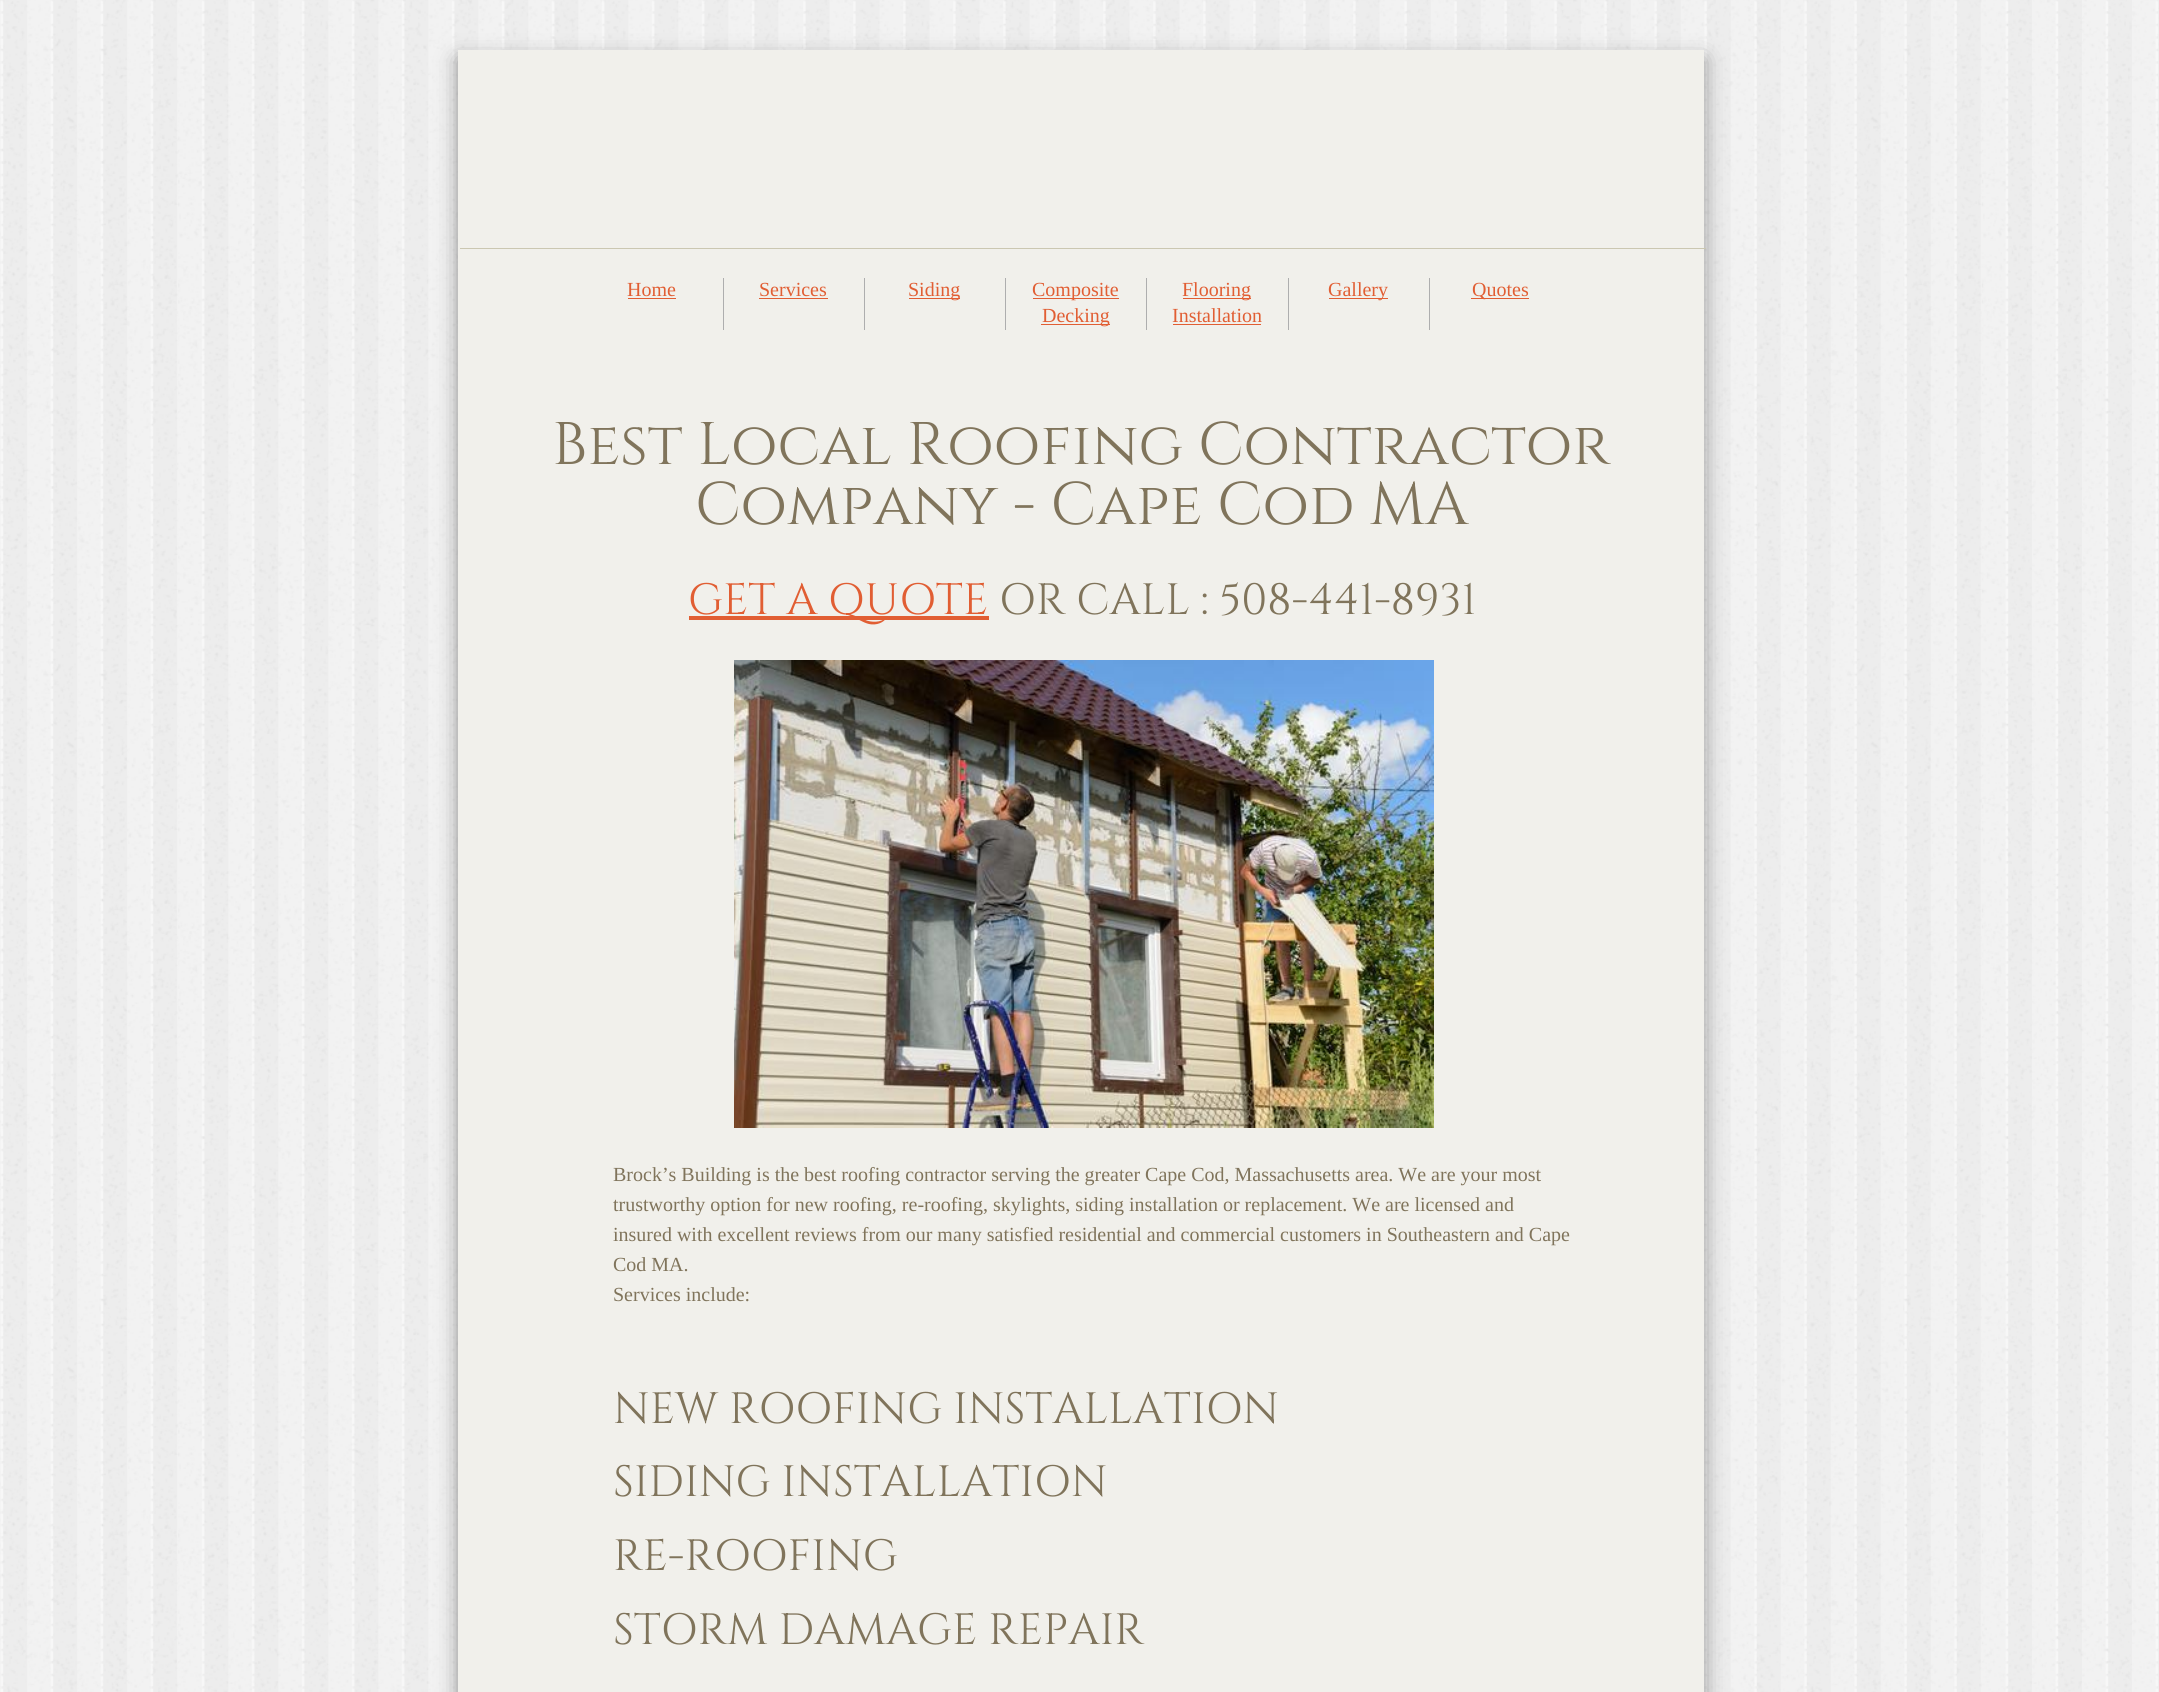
import math
import cairo


def use_color(cr, r, g, b):
  cr.set_source_rgb(r / 255, g / 255, b / 255)

def text(cr, x, y, s, family, size, color, bold=False, italic=False):
  cr.select_font_face(family, cairo.FONT_SLANT_ITALIC if italic else cairo.FONT_SLANT_NORMAL, cairo.FONT_WEIGHT_BOLD if bold else cairo.FONT_WEIGHT_NORMAL)
  cr.set_font_size(size)
  use_color(cr, *color)
  cr.move_to(x, y)
  cr.show_text(s)

def box(cr, x, y, w, h, *color):
  use_color(cr, *color)
  cr.rectangle(x, y, w, h)
  cr.fill()

def round_rect(cr, x, y, w, h, r):
  cr.new_sub_path()
  for i, (u, v) in enumerate([(x + w - r, y + h - r), (x + r, y + h - r), (x + r, y + r), (x + w - r, y + r)]):
    cr.arc(u, v, r, i * math.pi / 2, (i + 1) * math.pi / 2)
  cr.close_path()

def shadow(cr, x, y, w, h, r, blur, alpha):
  cr.push_group_with_content(cairo.CONTENT_ALPHA)
  cr.set_operator(cairo.OPERATOR_SOURCE)
  for i in range(15, -16, -2):
    e = blur * i / 6
    if min(w, h) + 2 * e > 0:
      cr.set_source_rgba(0, 0, 0, alpha * math.erfc((i - 1) / 8.5) / 2)
      round_rect(cr, x - e, y - e, w + 2 * e, h + 2 * e, max(0, min(r + e + blur * .6, min(w, h) / 2 + e)))
      cr.fill()
  cr.mask(cr.pop_group())

def picture(cr, path, x, y, w, h):
  cr.save()
  cr.set_source_surface(cairo.ImageSurface.create_from_png(path), x, y)
  cr.rectangle(x, y, w, h)
  cr.fill()
  cr.restore()

def draw(cr):
  use_color(cr, 255, 255, 255)
  cr.paint()
  picture(cr, "img_01.png", 0, 0, 2159, 1692)
  use_color(cr, 50, 50, 50)
  shadow(cr, 458, 59, 1246, 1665, 0, 10.5, 0.5)
  box(cr, 458, 50, 1246, 1642, 241, 240, 235)
  box(cr, 460, 248, 1246, 1, 203, 199, 177)
  box(cr, 723, 278, 1, 52, 174, 174, 174)
  box(cr, 628, 298, 48, 1, 225, 94, 51)
  box(cr, 864, 278, 1, 52, 174, 174, 174)
  box(cr, 759, 298, 69, 1, 225, 94, 51)
  box(cr, 1005, 278, 1, 52, 174, 174, 174)
  box(cr, 909, 298, 51, 1, 225, 94, 51)
  box(cr, 1146, 278, 1, 52, 174, 174, 174)
  box(cr, 1033, 298, 86, 1, 225, 94, 51)
  box(cr, 1041, 324, 69, 1, 225, 94, 51)
  box(cr, 1288, 278, 1, 52, 174, 174, 174)
  box(cr, 1183, 298, 68, 1, 225, 94, 51)
  box(cr, 1173, 324, 88, 1, 225, 94, 51)
  box(cr, 1429, 278, 1, 52, 174, 174, 174)
  box(cr, 1329, 298, 59, 1, 225, 94, 51)
  box(cr, 1471, 298, 58, 1, 225, 94, 51)
  box(cr, 689, 616, 300, 4, 225, 94, 51)
  picture(cr, "img_02.png", 734, 660, 700, 468)
  text(cr, 627, 296, "Home", "Liberation Serif", 20, (225, 94, 51))
  text(cr, 759, 296, "Services", "Liberation Serif", 20, (225, 94, 51))
  text(cr, 908, 296, "Siding", "Liberation Serif", 20, (225, 94, 51))
  text(cr, 1032, 296, "Composite", "Liberation Serif", 20, (225, 94, 51))
  text(cr, 1042, 322, "Decking", "Liberation Serif", 20, (225, 94, 51))
  text(cr, 1182, 296, "Flooring", "Liberation Serif", 20, (225, 94, 51))
  text(cr, 1172, 322, "Installation", "Liberation Serif", 20, (225, 94, 51))
  text(cr, 1328, 296, "Gallery", "Liberation Serif", 20, (225, 94, 51))
  text(cr, 1472, 296, "Quotes", "Liberation Serif", 20, (225, 94, 51))
  text(cr, 552, 464, "Best Local Roofing Contractor", "Cinzel", 60, (128, 116, 91))
  text(cr, 695, 524, "Company - Cape Cod MA", "Cinzel", 60, (128, 116, 91))
  text(cr, 688, 614, "GET A QUOTE", "Cinzel", 43.75, (225, 94, 51))
  text(cr, 999, 614, "OR CALL : 508-441-8931", "Cinzel", 43.75, (128, 116, 91))
  text(cr, 613, 1181, "Brock’s Building is the best roofing contractor serving the greater Cape Cod, Massachusetts area. We are your most", "Liberation Serif", 20, (128, 116, 91))
  text(cr, 613, 1211, "trustworthy option for new roofing, re-roofing, skylights, siding installation or replacement. We are licensed and", "Liberation Serif", 20, (128, 116, 91))
  text(cr, 613, 1241, "insured with excellent reviews from our many satisfied residential and commercial customers in Southeastern and Cape", "Liberation Serif", 20, (128, 116, 91))
  text(cr, 613, 1271, "Cod MA.", "Liberation Serif", 20, (128, 116, 91))
  text(cr, 613, 1301, "Services include:", "Liberation Serif", 20, (128, 116, 91))
  text(cr, 613, 1423, "NEW ROOFING INSTALLATION", "Cinzel", 43.75, (128, 116, 91))
  text(cr, 613, 1496, "SIDING INSTALLATION", "Cinzel", 43.75, (128, 116, 91))
  text(cr, 613, 1570, "RE-ROOFING", "Cinzel", 43.75, (128, 116, 91))
  text(cr, 613, 1644, "STORM DAMAGE REPAIR", "Cinzel", 43.75, (128, 116, 91))


surface = cairo.ImageSurface(cairo.FORMAT_RGB24, 2159, 1692)
cr = cairo.Context(surface)
options = cairo.FontOptions()
options.set_hint_metrics(cairo.HINT_METRICS_OFF)
options.set_hint_style(cairo.HINT_STYLE_NONE)
cr.set_font_options(options)
cr.set_miter_limit(4)
draw(cr)
surface.write_to_png("out.png")
